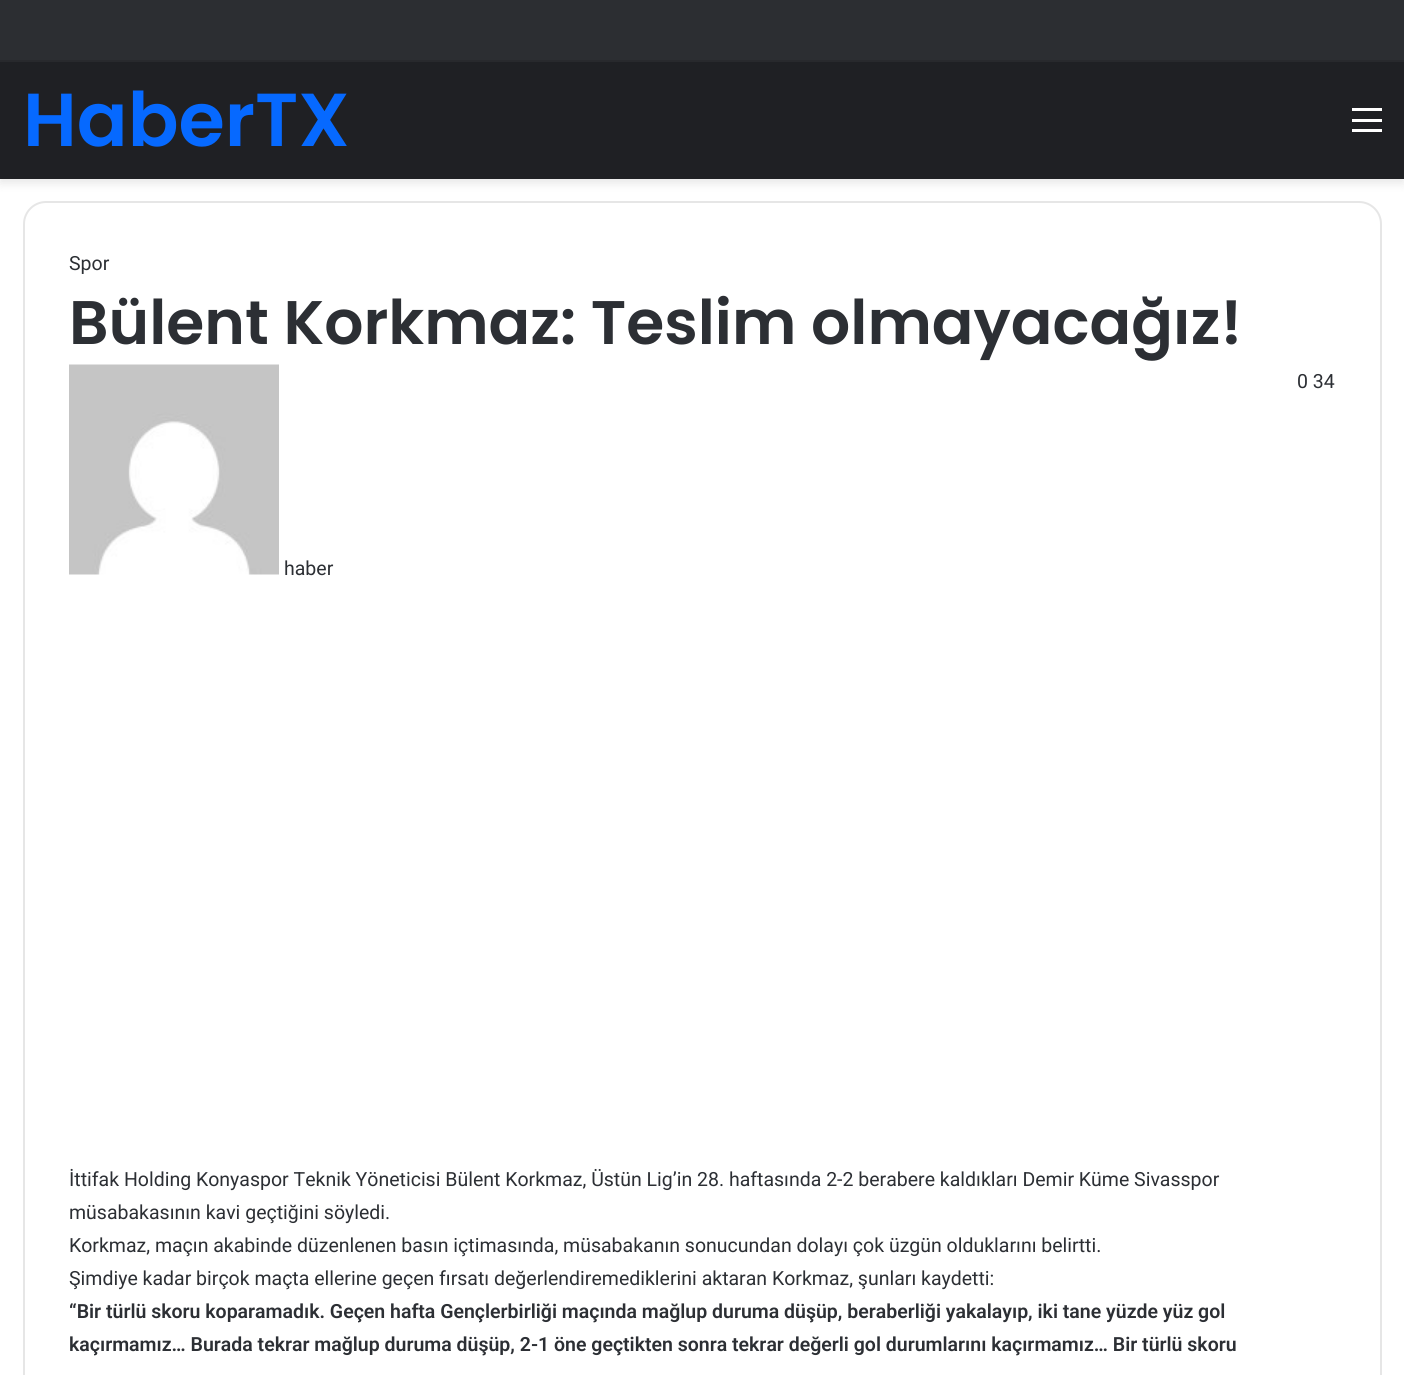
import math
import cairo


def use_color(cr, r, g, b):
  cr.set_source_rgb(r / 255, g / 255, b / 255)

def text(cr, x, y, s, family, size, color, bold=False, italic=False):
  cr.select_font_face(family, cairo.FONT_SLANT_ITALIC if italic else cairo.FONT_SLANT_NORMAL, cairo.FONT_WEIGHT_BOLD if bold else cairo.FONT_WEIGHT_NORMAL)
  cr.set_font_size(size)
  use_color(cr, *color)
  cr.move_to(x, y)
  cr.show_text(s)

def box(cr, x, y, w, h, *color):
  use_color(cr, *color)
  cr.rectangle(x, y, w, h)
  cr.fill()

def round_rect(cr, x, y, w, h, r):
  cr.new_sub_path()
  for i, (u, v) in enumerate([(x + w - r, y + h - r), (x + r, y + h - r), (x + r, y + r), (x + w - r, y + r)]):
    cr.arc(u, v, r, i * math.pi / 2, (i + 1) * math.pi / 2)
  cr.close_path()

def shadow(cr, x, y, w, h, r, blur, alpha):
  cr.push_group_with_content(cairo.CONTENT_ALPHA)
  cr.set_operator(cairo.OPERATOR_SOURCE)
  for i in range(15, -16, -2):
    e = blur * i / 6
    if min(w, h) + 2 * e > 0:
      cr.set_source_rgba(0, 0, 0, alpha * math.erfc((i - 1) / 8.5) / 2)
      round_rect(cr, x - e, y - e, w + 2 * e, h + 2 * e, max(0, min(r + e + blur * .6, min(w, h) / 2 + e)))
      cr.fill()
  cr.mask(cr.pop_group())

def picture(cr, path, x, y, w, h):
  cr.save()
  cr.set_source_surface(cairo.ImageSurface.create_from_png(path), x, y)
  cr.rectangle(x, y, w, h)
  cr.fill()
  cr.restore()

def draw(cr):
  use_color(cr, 255, 255, 255)
  cr.paint()
  use_color(cr, 0, 0, 0)
  shadow(cr, 0, 66, 1404, 117, 0, 5, 0.1)
  box(cr, 0, 0, 1404, 60, 44, 46, 50)
  box(cr, 0, 60, 1404, 2, 40, 41, 45)
  box(cr, 0, 62, 1404, 117, 31, 32, 36)
  box(cr, 1352, 119, 30, 3, 255, 255, 255)
  box(cr, 1352, 108, 30, 3, 255, 255, 255)
  box(cr, 1352, 129, 30, 3, 255, 255, 255)
  round_rect(cr, 24, 202, 1357, 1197, 22)
  use_color(cr, 230, 230, 230)
  cr.stroke()
  picture(cr, "img_01.png", 69, 364, 210, 211)
  text(cr, 23, 146, "HaberTX", "Poppins SemiBold", 75, (6, 105, 255))
  text(cr, 69, 270, "Spor", "Roboto", 19.5, (44, 47, 52))
  text(cr, 69, 344, "Bülent Korkmaz: Teslim olmayacağız!", "Poppins SemiBold", 61.5, (44, 47, 52))
  text(cr, 1297, 388, "0 34", "Roboto", 19.5, (44, 47, 52))
  text(cr, 284, 575, "haber", "Roboto", 19.5, (44, 47, 52))
  text(cr, 69, 1186, "İttifak Holding Konyaspor Teknik Yöneticisi Bülent Korkmaz, Üstün Lig’in 28. haftasında 2-2 berabere kaldıkları Demir Küme Sivasspor", "Roboto", 19.5, (44, 47, 52))
  text(cr, 69, 1219, "müsabakasının kavi geçtiğini söyledi.", "Roboto", 19.5, (44, 47, 52))
  text(cr, 69, 1252, "Korkmaz, maçın akabinde düzenlenen basın içtimasında, müsabakanın sonucundan dolayı çok üzgün olduklarını belirtti.", "Roboto", 19.5, (44, 47, 52))
  text(cr, 69, 1285, "Şimdiye kadar birçok maçta ellerine geçen fırsatı değerlendiremediklerini aktaran Korkmaz, şunları kaydetti:", "Roboto", 19.5, (44, 47, 52))
  text(cr, 69, 1318, "“Bir türlü skoru koparamadık. Geçen hafta Gençlerbirliği maçında mağlup duruma düşüp, beraberliği yakalayıp, iki tane yüzde yüz gol", "Roboto SemiBold", 19.5, (44, 47, 52))
  text(cr, 69, 1351, "kaçırmamız… Burada tekrar mağlup duruma düşüp, 2-1 öne geçtikten sonra tekrar değerli gol durumlarını kaçırmamız… Bir türlü skoru", "Roboto SemiBold", 19.5, (44, 47, 52))


surface = cairo.ImageSurface(cairo.FORMAT_RGB24, 1404, 1375)
cr = cairo.Context(surface)
options = cairo.FontOptions()
options.set_hint_metrics(cairo.HINT_METRICS_OFF)
options.set_hint_style(cairo.HINT_STYLE_NONE)
cr.set_font_options(options)
cr.set_miter_limit(4)
draw(cr)
surface.write_to_png("out.png")
